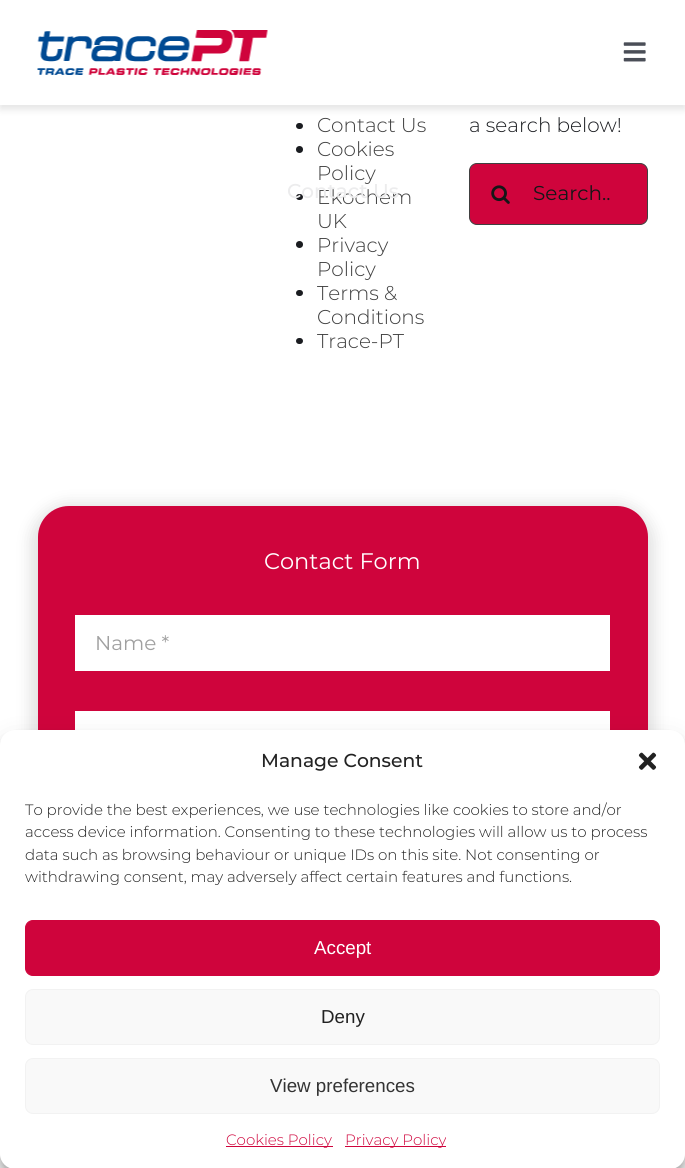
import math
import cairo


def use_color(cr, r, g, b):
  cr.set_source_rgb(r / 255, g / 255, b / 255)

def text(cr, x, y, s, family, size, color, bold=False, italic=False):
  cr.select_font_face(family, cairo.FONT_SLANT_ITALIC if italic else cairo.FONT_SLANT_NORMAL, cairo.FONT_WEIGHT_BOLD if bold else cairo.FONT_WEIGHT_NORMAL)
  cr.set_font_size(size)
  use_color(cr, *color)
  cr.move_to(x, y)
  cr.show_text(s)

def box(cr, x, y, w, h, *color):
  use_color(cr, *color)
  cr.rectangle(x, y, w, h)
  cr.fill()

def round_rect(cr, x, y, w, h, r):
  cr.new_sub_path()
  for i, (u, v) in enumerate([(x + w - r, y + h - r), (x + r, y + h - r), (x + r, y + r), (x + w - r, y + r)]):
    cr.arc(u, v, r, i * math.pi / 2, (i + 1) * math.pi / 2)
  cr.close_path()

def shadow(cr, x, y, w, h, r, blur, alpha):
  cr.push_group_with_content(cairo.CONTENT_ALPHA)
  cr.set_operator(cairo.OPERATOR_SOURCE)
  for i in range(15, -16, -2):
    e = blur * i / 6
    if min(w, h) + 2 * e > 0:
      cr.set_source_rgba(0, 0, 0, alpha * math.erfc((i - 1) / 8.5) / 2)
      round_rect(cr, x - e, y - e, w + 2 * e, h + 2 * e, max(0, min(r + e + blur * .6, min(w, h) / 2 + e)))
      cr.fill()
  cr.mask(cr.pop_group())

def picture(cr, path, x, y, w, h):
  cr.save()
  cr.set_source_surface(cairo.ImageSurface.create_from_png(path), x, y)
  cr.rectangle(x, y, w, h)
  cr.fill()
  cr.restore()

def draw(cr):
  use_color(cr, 255, 255, 255)
  cr.paint()
  use_color(cr, 26, 28, 32)
  round_rect(cr, 296, 123, 7, 6, 3)
  cr.fill()
  cr.arc(299.5, 149.5, 3.5, 0, 2 * math.pi)
  cr.fill()
  round_rect(cr, 296, 194, 7, 6, 3)
  cr.fill()
  cr.arc(299.5, 244.5, 3.5, 0, 2 * math.pi)
  cr.fill()
  round_rect(cr, 296, 290, 7, 6, 3)
  cr.fill()
  round_rect(cr, 296, 338, 7, 6, 3)
  cr.fill()
  use_color(cr, 207, 4, 60)
  round_rect(cr, 469.5, 163.5, 178, 61, 7.5)
  cr.fill_preserve()
  use_color(cr, 64, 64, 64)
  cr.set_line_width(1)
  cr.stroke()
  picture(cr, "img_01.png", 491, 185, 19, 19)
  use_color(cr, 64, 64, 64)
  shadow(cr, 0, 4, 685, 105, 0, 4, 0.15)
  box(cr, 0, 0, 685, 105, 255, 255, 255)
  picture(cr, "img_02.png", 37, 30, 231, 45)
  picture(cr, "img_03.png", 623, 42, 23, 20)
  use_color(cr, 64, 64, 64)
  shadow(cr, 30, 503, 625, 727, 39, 7.5, 0.15)
  use_color(cr, 207, 4, 60)
  round_rect(cr, 38, 506, 610, 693, 31)
  cr.fill()
  box(cr, 75, 615, 535, 56, 255, 255, 255)
  box(cr, 75, 711, 535, 19, 255, 255, 255)
  use_color(cr, 128, 128, 128)
  shadow(cr, 598, 1076, 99, 75, 2.5, 3, 1)
  use_color(cr, 0, 0, 0)
  shadow(cr, 0, 738, 685, 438, 15, 4, 0.23)
  shadow(cr, 0, 743, 685, 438, 15, 12.5, 0.19)
  use_color(cr, 255, 255, 255)
  round_rect(cr, 0, 730, 685, 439, 15)
  cr.fill()
  picture(cr, "img_04.png", 638, 752, 19, 18)
  use_color(cr, 207, 4, 60)
  round_rect(cr, 25.5, 920.5, 634, 55, 7.5)
  cr.fill_preserve()
  cr.stroke()
  use_color(cr, 249, 249, 249)
  round_rect(cr, 25.5, 989.5, 634, 55, 7.5)
  cr.fill_preserve()
  use_color(cr, 242, 242, 242)
  cr.stroke()
  use_color(cr, 249, 249, 249)
  round_rect(cr, 25.5, 1058.5, 634, 55, 7.5)
  cr.fill_preserve()
  use_color(cr, 242, 242, 242)
  cr.stroke()
  box(cr, 226, 1146, 107, 1, 207, 4, 60)
  box(cr, 345, 1146, 101, 1, 207, 4, 60)
  text(cr, 317, 132, "Contact Us", "Montserrat Light", 20, (64, 64, 64))
  text(cr, 317, 156, "Cookies", "Montserrat Light", 20, (64, 64, 64))
  text(cr, 317, 180, "Policy", "Montserrat Light", 20, (64, 64, 64))
  text(cr, 317, 204, "Ekochem", "Montserrat Light", 20, (64, 64, 64))
  text(cr, 317, 228, "UK", "Montserrat Light", 20, (64, 64, 64))
  text(cr, 317, 252, "Privacy", "Montserrat Light", 20, (64, 64, 64))
  text(cr, 317, 276, "Policy", "Montserrat Light", 20, (64, 64, 64))
  text(cr, 317, 300, "Terms &", "Montserrat Light", 20, (64, 64, 64))
  text(cr, 317, 324, "Conditions", "Montserrat Light", 20, (64, 64, 64))
  text(cr, 317, 348, "Trace-PT", "Montserrat Light", 20, (64, 64, 64))
  text(cr, 469, 132, "a search below!", "Montserrat Light", 20, (26, 28, 32))
  text(cr, 533, 200, "Search..", "Montserrat", 20, (20, 22, 23))
  text(cr, 287, 198, "Contact Us", "Montserrat Medium", 20, (236, 236, 237))
  text(cr, 264, 569, "Contact Form", "Montserrat", 22.5, (255, 255, 255))
  text(cr, 95, 650, "Name *", "Montserrat", 20, (160, 160, 160))
  text(cr, 261, 767, "Manage Consent", "Montserrat Medium", 18.75, (34, 34, 34))
  text(cr, 25, 815, "To provide the best experiences, we use technologies like cookies to store and/or", "Montserrat Light", 15, (34, 34, 34))
  text(cr, 25, 837, "access device information. Consenting to these technologies will allow us to process", "Montserrat Light", 15, (34, 34, 34))
  text(cr, 25, 860, "data such as browsing behaviour or unique IDs on this site. Not consenting or", "Montserrat Light", 15, (34, 34, 34))
  text(cr, 25, 882, "withdrawing consent, may adversely affect certain features and functions.", "Montserrat Light", 15, (34, 34, 34))
  text(cr, 314, 954, "Accept", "Liberation Sans", 18.75, (255, 255, 255))
  text(cr, 321, 1023, "Deny", "Liberation Sans", 18.75, (34, 34, 34))
  text(cr, 270, 1092, "View preferences", "Liberation Sans", 18.75, (51, 51, 51))
  text(cr, 226, 1145, "Cookies Policy", "Montserrat Light", 15, (207, 4, 60))
  text(cr, 345, 1145, "Privacy Policy", "Montserrat Light", 15, (207, 4, 60))


surface = cairo.ImageSurface(cairo.FORMAT_RGB24, 685, 1168)
cr = cairo.Context(surface)
options = cairo.FontOptions()
options.set_hint_metrics(cairo.HINT_METRICS_OFF)
options.set_hint_style(cairo.HINT_STYLE_NONE)
cr.set_font_options(options)
cr.set_miter_limit(4)
draw(cr)
surface.write_to_png("out.png")
